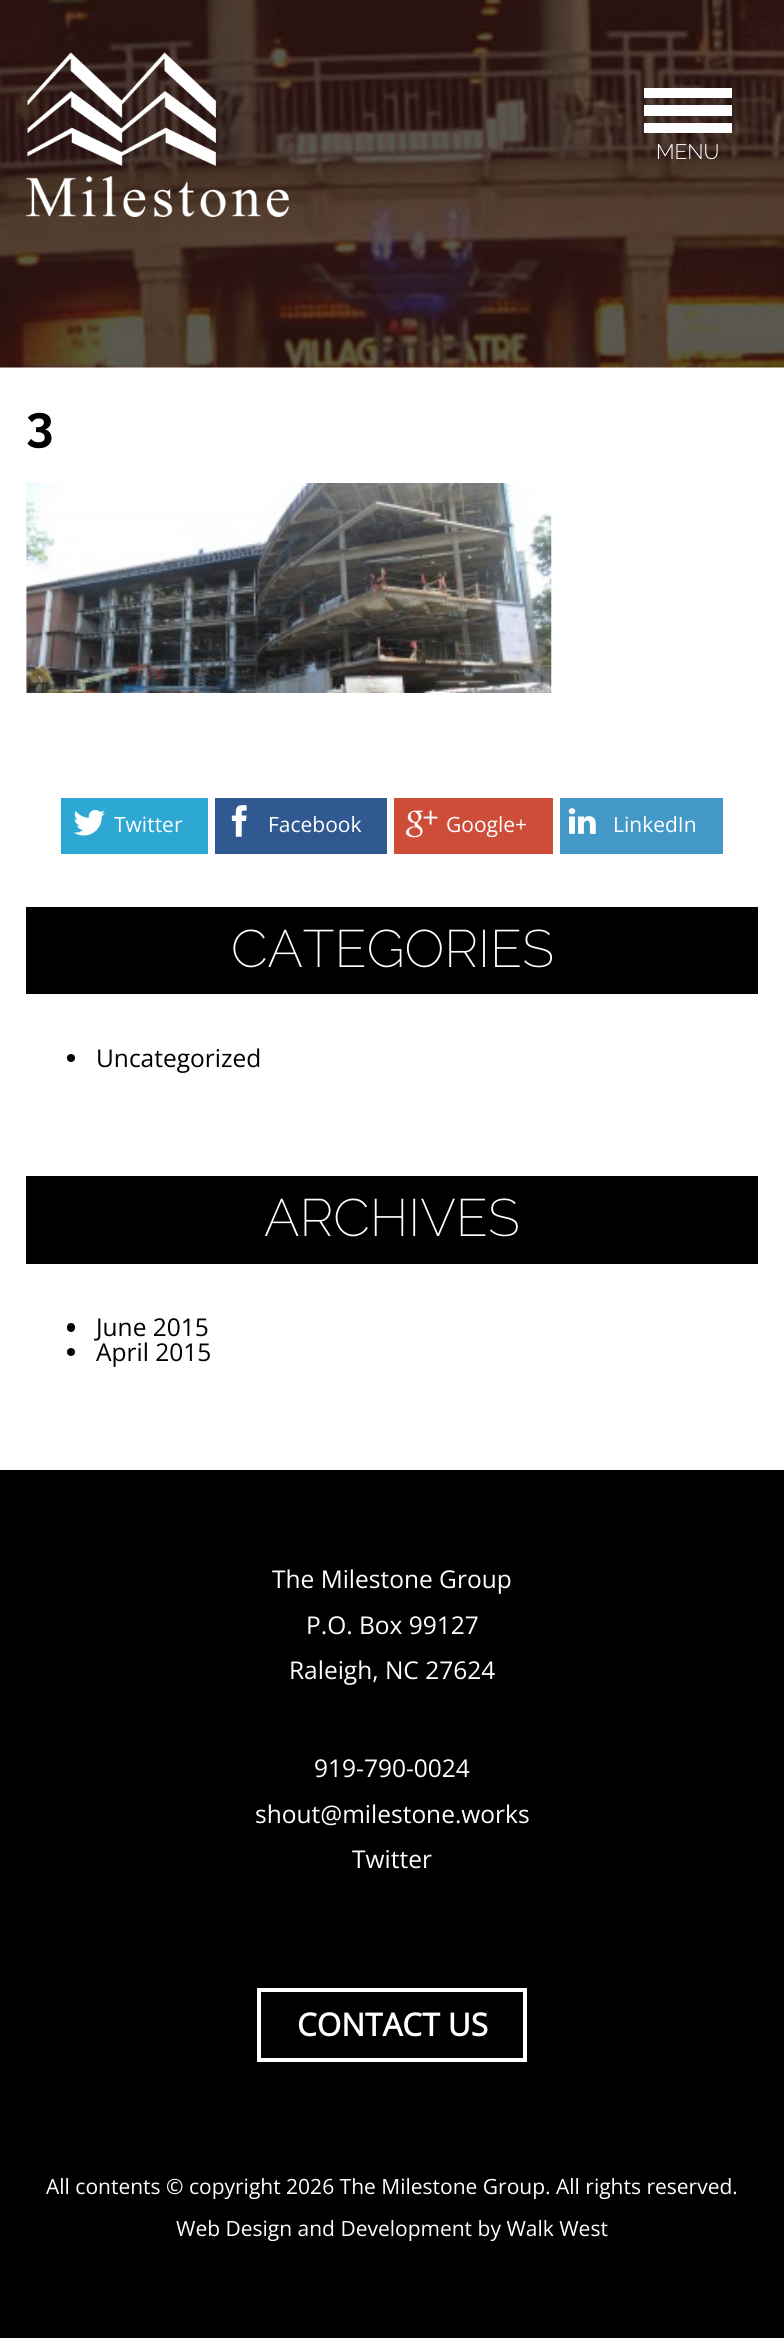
import math
import cairo


def use_color(cr, r, g, b):
  cr.set_source_rgb(r / 255, g / 255, b / 255)

def text(cr, x, y, s, family, size, color, bold=False, italic=False):
  cr.select_font_face(family, cairo.FONT_SLANT_ITALIC if italic else cairo.FONT_SLANT_NORMAL, cairo.FONT_WEIGHT_BOLD if bold else cairo.FONT_WEIGHT_NORMAL)
  cr.set_font_size(size)
  use_color(cr, *color)
  cr.move_to(x, y)
  cr.show_text(s)

def box(cr, x, y, w, h, *color):
  use_color(cr, *color)
  cr.rectangle(x, y, w, h)
  cr.fill()

def round_rect(cr, x, y, w, h, r):
  cr.new_sub_path()
  for i, (u, v) in enumerate([(x + w - r, y + h - r), (x + r, y + h - r), (x + r, y + r), (x + w - r, y + r)]):
    cr.arc(u, v, r, i * math.pi / 2, (i + 1) * math.pi / 2)
  cr.close_path()

def picture(cr, path, x, y, w, h):
  cr.save()
  cr.set_source_surface(cairo.ImageSurface.create_from_png(path), x, y)
  cr.rectangle(x, y, w, h)
  cr.fill()
  cr.restore()

def draw(cr):
  use_color(cr, 255, 255, 255)
  cr.paint()
  picture(cr, "img_01.png", 0, 0, 784, 368)
  picture(cr, "img_02.png", 26, 52, 263, 165)
  box(cr, 644, 88, 88, 10, 255, 255, 255)
  box(cr, 644, 105, 88, 11, 255, 255, 255)
  box(cr, 644, 123, 88, 10, 255, 255, 255)
  picture(cr, "img_03.png", 26, 483, 526, 210)
  box(cr, 61, 798, 147, 56, 44, 168, 210)
  picture(cr, "img_04.png", 73, 809, 32, 27)
  box(cr, 215, 798, 172, 56, 48, 88, 145)
  picture(cr, "img_05.png", 231, 805, 16, 32)
  box(cr, 394, 798, 159, 56, 206, 77, 57)
  picture(cr, "img_06.png", 406, 810, 32, 28)
  box(cr, 560, 798, 163, 56, 68, 152, 200)
  picture(cr, "img_07.png", 568, 808, 28, 26)
  box(cr, 26, 907, 732, 87, 0, 0, 0)
  cr.arc(71, 1058, 4, 0, 2 * math.pi)
  cr.fill()
  box(cr, 26, 1176, 732, 88, 0, 0, 0)
  round_rect(cr, 67, 1323, 8, 9, 4)
  cr.fill()
  cr.arc(71, 1352, 4, 0, 2 * math.pi)
  cr.fill()
  box(cr, 0, 1470, 784, 868, 0, 0, 0)
  cr.rectangle(259, 1990, 266, 70)
  use_color(cr, 255, 255, 255)
  cr.set_line_width(4)
  cr.stroke()
  text(cr, 656, 159, "MENU", "Raleway Light", 21, (255, 255, 255))
  text(cr, 26, 441, "3", "Raleway", 49, (0, 0, 0), bold=True)
  text(cr, 114, 832, "Twitter", "Open Sans", 21, (255, 255, 255))
  text(cr, 268, 832, "Facebook", "Open Sans", 21, (255, 255, 255))
  text(cr, 446, 832, "Google+", "Open Sans", 21, (255, 255, 255))
  text(cr, 613, 832, "LinkedIn", "Open Sans", 21, (255, 255, 255))
  text(cr, 231, 967, "CATEGORIES", "Raleway ExtraLight", 52.5, (255, 255, 255))
  text(cr, 96, 1067, "Uncategorized", "Open Sans", 24.5, (0, 0, 0))
  text(cr, 264, 1236, "ARCHIVES", "Raleway ExtraLight", 52.5, (255, 255, 255))
  text(cr, 96, 1336, "June 2015", "Open Sans", 24.5, (0, 0, 0))
  text(cr, 96, 1361, "April 2015", "Open Sans", 24.5, (0, 0, 0))
  text(cr, 272, 1588, "The Milestone Group", "Open Sans", 24.5, (255, 255, 255))
  text(cr, 306, 1634, "P.O. Box 99127", "Open Sans", 24.5, (255, 255, 255))
  text(cr, 289, 1679, "Raleigh, NC 27624", "Open Sans", 24.5, (255, 255, 255))
  text(cr, 314, 1777, "919-790-0024", "Open Sans", 24.5, (255, 255, 255))
  text(cr, 255, 1823, "shout@milestone.works", "Open Sans", 24.5, (255, 255, 255))
  text(cr, 352, 1868, "Twitter", "Open Sans", 24.5, (255, 255, 255))
  text(cr, 297, 2036, "CONTACT US", "Open Sans", 31.5, (255, 255, 255), bold=True)
  text(cr, 46, 2194, "All contents © copyright 2026 The Milestone Group. All rights reserved.", "Open Sans", 21, (255, 255, 255))
  text(cr, 176, 2236, "Web Design and Development by Walk West", "Open Sans", 21, (255, 255, 255))


surface = cairo.ImageSurface(cairo.FORMAT_RGB24, 784, 2342)
cr = cairo.Context(surface)
options = cairo.FontOptions()
options.set_hint_metrics(cairo.HINT_METRICS_OFF)
options.set_hint_style(cairo.HINT_STYLE_NONE)
cr.set_font_options(options)
cr.set_miter_limit(4)
draw(cr)
surface.write_to_png("out.png")
